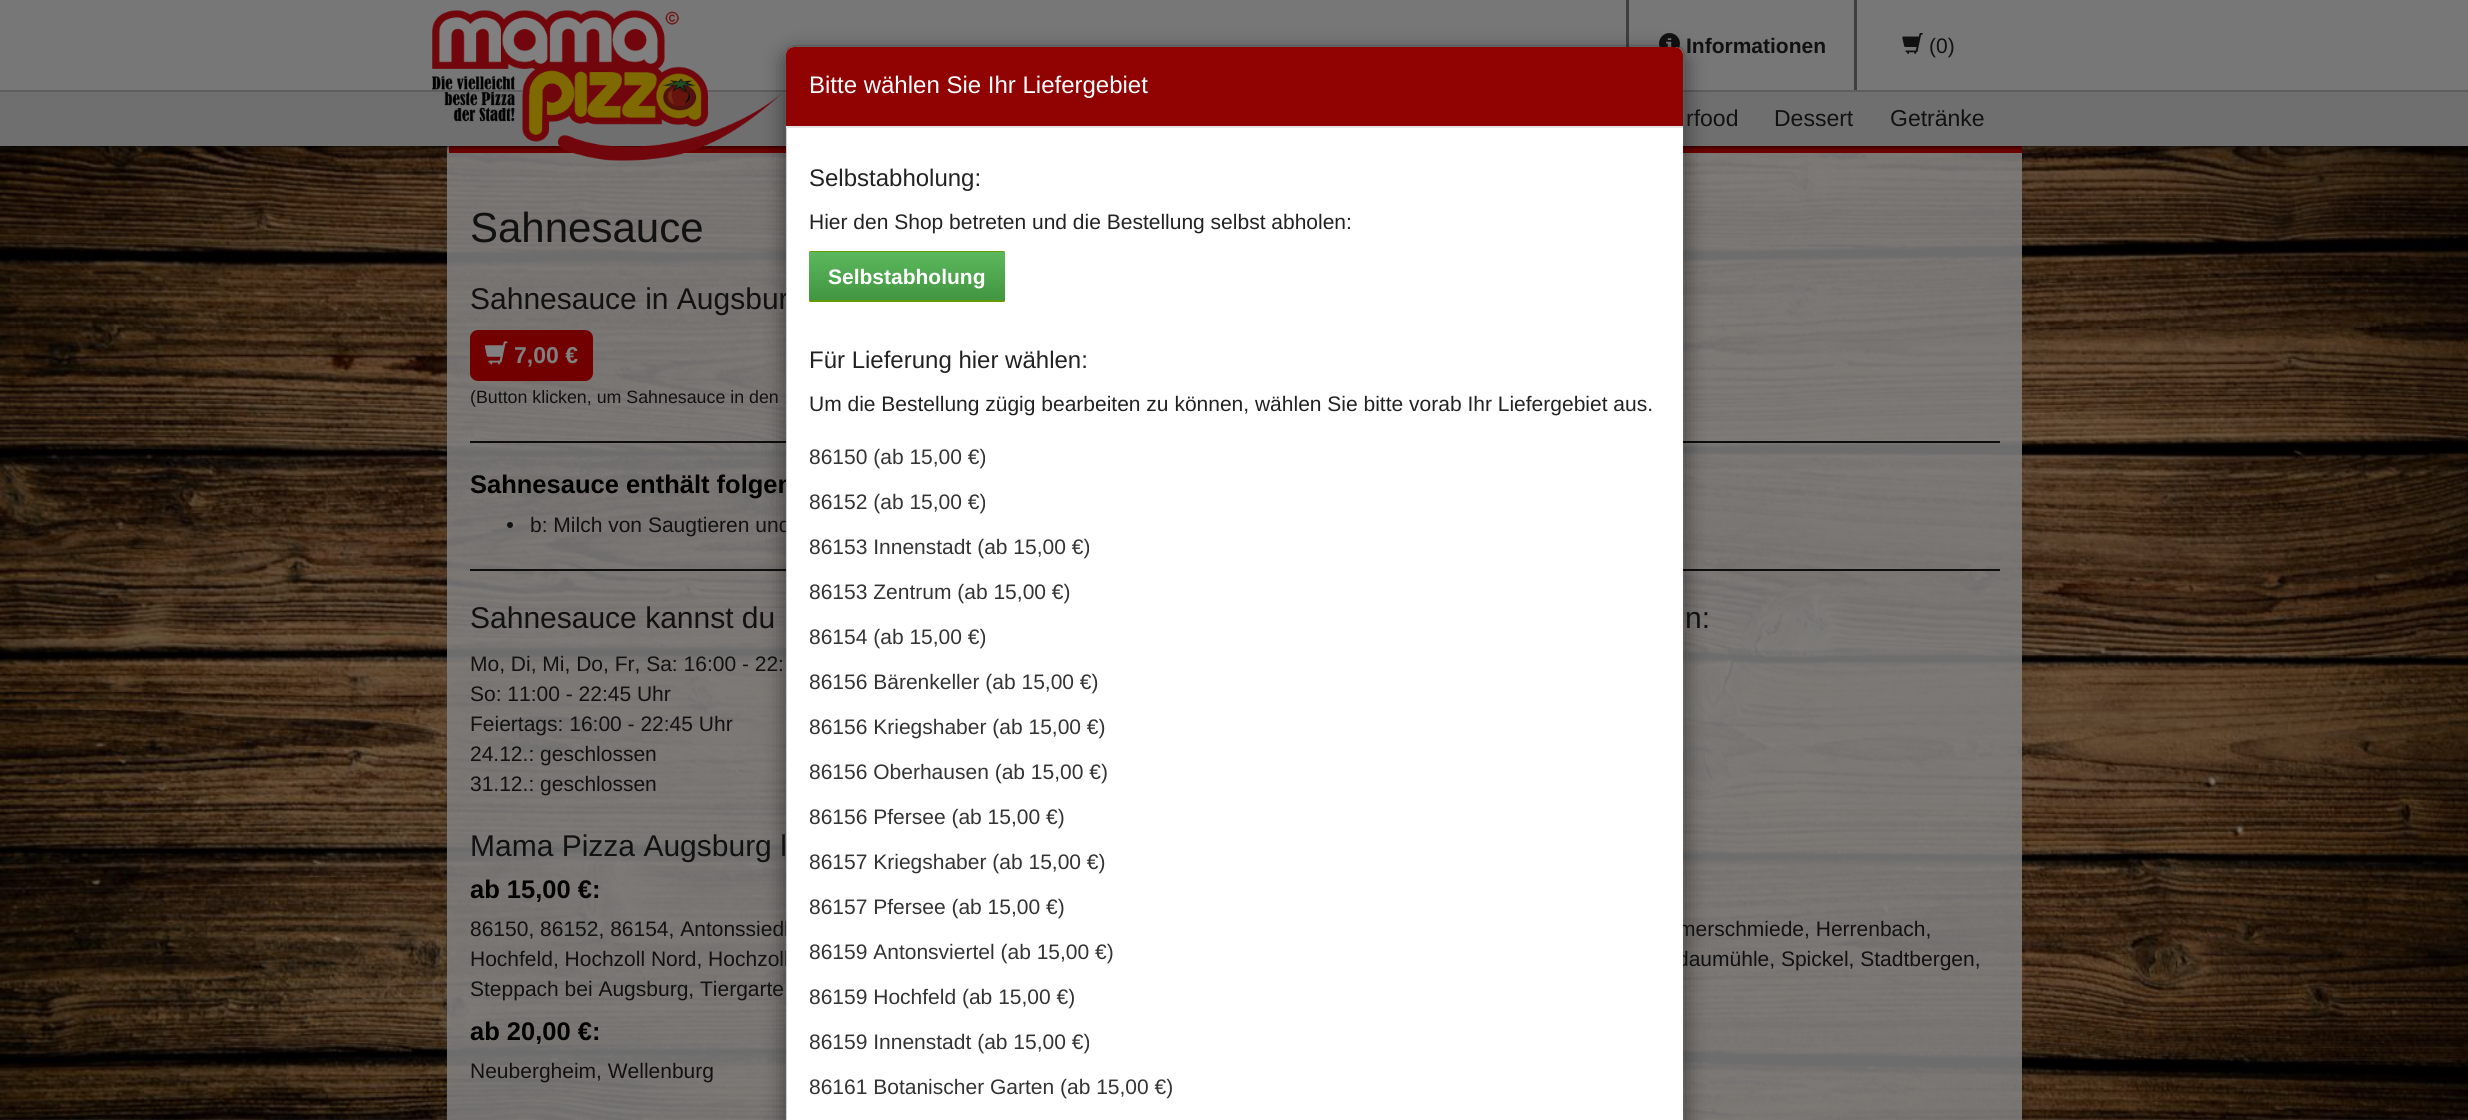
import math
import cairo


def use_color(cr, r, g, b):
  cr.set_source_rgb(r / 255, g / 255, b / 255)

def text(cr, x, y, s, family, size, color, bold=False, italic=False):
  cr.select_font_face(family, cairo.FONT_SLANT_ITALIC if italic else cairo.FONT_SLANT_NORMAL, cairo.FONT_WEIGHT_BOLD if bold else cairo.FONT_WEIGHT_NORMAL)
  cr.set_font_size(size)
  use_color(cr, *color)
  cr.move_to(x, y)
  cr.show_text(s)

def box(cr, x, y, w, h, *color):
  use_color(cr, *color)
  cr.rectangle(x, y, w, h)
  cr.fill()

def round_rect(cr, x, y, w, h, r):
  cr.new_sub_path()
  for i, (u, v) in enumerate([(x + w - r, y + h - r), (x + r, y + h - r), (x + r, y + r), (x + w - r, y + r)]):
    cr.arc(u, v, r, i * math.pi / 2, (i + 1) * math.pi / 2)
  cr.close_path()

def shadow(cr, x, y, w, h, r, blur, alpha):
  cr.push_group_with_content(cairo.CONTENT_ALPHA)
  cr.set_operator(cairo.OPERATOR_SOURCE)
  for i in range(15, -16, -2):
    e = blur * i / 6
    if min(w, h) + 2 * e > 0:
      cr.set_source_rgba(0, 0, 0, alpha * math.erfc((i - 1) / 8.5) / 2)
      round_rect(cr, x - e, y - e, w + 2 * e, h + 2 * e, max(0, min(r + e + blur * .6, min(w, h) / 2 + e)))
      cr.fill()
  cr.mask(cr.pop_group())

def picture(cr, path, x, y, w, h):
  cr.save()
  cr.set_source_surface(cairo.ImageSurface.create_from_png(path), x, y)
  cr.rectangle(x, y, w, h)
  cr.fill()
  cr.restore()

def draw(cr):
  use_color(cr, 255, 255, 255)
  cr.paint()
  picture(cr, "img_01.png", 0, 146, 2468, 974)
  cr.set_source_rgba(0.502, 0.502, 0.502, 0.85)
  round_rect(cr, 447, 146, 1575, 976, 1.5)
  cr.fill()
  box(cr, 449, 146, 1573, 7, 113, 0, 0)
  use_color(cr, 0, 0, 0)
  shadow(cr, 0, 90, 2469, 56, 0, 3, 1)
  box(cr, 0, 0, 2468, 90, 119, 119, 119)
  box(cr, 0, 92, 2468, 54, 111, 111, 111)
  box(cr, 0, 90, 2468, 2, 94, 94, 94)
  picture(cr, "img_02.png", 432, 10, 351, 151)
  box(cr, 1626, 0, 3, 47, 63, 63, 63)
  picture(cr, "img_03.png", 1659, 33, 21, 16)
  box(cr, 1854, 0, 3, 90, 63, 63, 63)
  picture(cr, "img_04.png", 1902, 33, 21, 21)
  box(cr, 470, 441, 1530, 2, 13, 13, 13)
  box(cr, 470, 569, 1530, 2, 13, 13, 13)
  cr.save()
  cr.set_fill_rule(cairo.FILL_RULE_EVEN_ODD)
  cr.new_path()
  cr.move_to(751, 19)
  cr.line_to(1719, 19)
  cr.line_to(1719, 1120)
  cr.line_to(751, 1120)
  cr.close_path()
  cr.move_to(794, 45)
  cr.line_to(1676, 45)
  cr.curve_to(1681, 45, 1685, 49, 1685, 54)
  cr.line_to(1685, 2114)
  cr.curve_to(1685, 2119, 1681, 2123, 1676, 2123)
  cr.line_to(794, 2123)
  cr.curve_to(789, 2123, 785, 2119, 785, 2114)
  cr.line_to(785, 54)
  cr.curve_to(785, 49, 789, 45, 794, 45)
  cr.close_path()
  cr.clip()
  use_color(cr, 0, 0, 0)
  shadow(cr, 785, 53, 900, 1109, 9, 11, 0.5)
  cr.restore()
  use_color(cr, 114, 0, 0)
  round_rect(cr, 470, 330, 123, 51, 8)
  cr.fill()
  picture(cr, "img_05.png", 484, 341, 24, 24)
  use_color(cr, 17, 17, 17)
  cr.arc(510, 525, 3, 0, 2 * math.pi)
  cr.fill()
  text(cr, 1686, 53, "Informationen", "Liberation Sans", 21, (17, 17, 17), bold=True)
  text(cr, 1929, 53, "(0)", "Liberation Sans", 21, (17, 17, 17))
  text(cr, 1686, 126, "rfood", "Liberation Sans", 23, (17, 17, 17))
  text(cr, 1774, 126, "Dessert", "Liberation Sans", 23, (17, 17, 17))
  text(cr, 1890, 126, "Getränke", "Liberation Sans", 23, (17, 17, 17))
  text(cr, 470, 242, "Sahnesauce", "Liberation Sans", 42, (17, 17, 17))
  text(cr, 470, 309, "Sahnesauce in Augsbur", "Liberation Sans", 30, (17, 17, 17))
  text(cr, 514, 363, "7,00 €", "Liberation Sans", 23, (128, 128, 128), bold=True)
  text(cr, 470, 403, "(Button klicken, um Sahnesauce in den", "Liberation Sans", 17.8, (17, 17, 17))
  text(cr, 470, 493, "Sahnesauce enthält folgen", "Liberation Sans", 25.5, (0, 0, 0), bold=True)
  text(cr, 530, 532, "b: Milch von Saugtieren und", "Liberation Sans", 21, (17, 17, 17))
  text(cr, 470, 628, "Sahnesauce kannst du", "Liberation Sans", 30, (17, 17, 17))
  text(cr, 1685, 628, "n:", "Liberation Sans", 30, (17, 17, 17))
  text(cr, 470, 671, "Mo, Di, Mi, Do, Fr, Sa: 16:00 - 22:", "Liberation Sans", 21, (17, 17, 17))
  text(cr, 470, 701, "So: 11:00 - 22:45 Uhr", "Liberation Sans", 21, (17, 17, 17))
  text(cr, 470, 731, "Feiertags: 16:00 - 22:45 Uhr", "Liberation Sans", 21, (17, 17, 17))
  text(cr, 470, 761, "24.12.: geschlossen", "Liberation Sans", 21, (17, 17, 17))
  text(cr, 470, 791, "31.12.: geschlossen", "Liberation Sans", 21, (17, 17, 17))
  text(cr, 470, 856, "Mama Pizza Augsburg l", "Liberation Sans", 30, (17, 17, 17))
  text(cr, 470, 898, "ab 15,00 €:", "Liberation Sans", 25.5, (0, 0, 0), bold=True)
  text(cr, 470, 936, "86150, 86152, 86154, Antonssiedl", "Liberation Sans", 21, (17, 17, 17))
  text(cr, 1678, 936, "merschmiede, Herrenbach,", "Liberation Sans", 21, (17, 17, 17))
  text(cr, 470, 966, "Hochfeld, Hochzoll Nord, Hochzoll", "Liberation Sans", 21, (17, 17, 17))
  text(cr, 1677, 966, "daumühle, Spickel, Stadtbergen,", "Liberation Sans", 21, (17, 17, 17))
  use_color(cr, 255, 255, 255)
  cr.new_path()
  cr.move_to(794, 47)
  cr.line_to(1675, 47)
  cr.curve_to(1679.5, 47, 1683, 50.5, 1683, 55)
  cr.line_to(1683, 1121)
  cr.line_to(786, 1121)
  cr.line_to(786, 55)
  cr.curve_to(786, 50.5, 789.5, 47, 794, 47)
  cr.close_path()
  cr.fill()
  round_rect(cr, 786, 46, 898, 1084, 8)
  cr.set_source_rgba(0, 0, 0, 0.2)
  cr.stroke()
  text(cr, 809, 1094, "86161 Botanischer Garten (ab 15,00 €)", "Liberation Sans", 21, (51, 51, 51))
  text(cr, 809, 1049, "86159 Innenstadt (ab 15,00 €)", "Liberation Sans", 21, (51, 51, 51))
  text(cr, 809, 1004, "86159 Hochfeld (ab 15,00 €)", "Liberation Sans", 21, (51, 51, 51))
  text(cr, 809, 959, "86159 Antonsviertel (ab 15,00 €)", "Liberation Sans", 21, (51, 51, 51))
  text(cr, 809, 914, "86157 Pfersee (ab 15,00 €)", "Liberation Sans", 21, (51, 51, 51))
  text(cr, 809, 869, "86157 Kriegshaber (ab 15,00 €)", "Liberation Sans", 21, (51, 51, 51))
  text(cr, 809, 824, "86156 Pfersee (ab 15,00 €)", "Liberation Sans", 21, (51, 51, 51))
  text(cr, 809, 779, "86156 Oberhausen (ab 15,00 €)", "Liberation Sans", 21, (51, 51, 51))
  text(cr, 809, 734, "86156 Kriegshaber (ab 15,00 €)", "Liberation Sans", 21, (51, 51, 51))
  text(cr, 809, 689, "86156 Bärenkeller (ab 15,00 €)", "Liberation Sans", 21, (51, 51, 51))
  text(cr, 809, 644, "86154 (ab 15,00 €)", "Liberation Sans", 21, (51, 51, 51))
  text(cr, 809, 599, "86153 Zentrum (ab 15,00 €)", "Liberation Sans", 21, (51, 51, 51))
  text(cr, 809, 554, "86153 Innenstadt (ab 15,00 €)", "Liberation Sans", 21, (51, 51, 51))
  text(cr, 809, 509, "86152 (ab 15,00 €)", "Liberation Sans", 21, (51, 51, 51))
  text(cr, 809, 464, "86150 (ab 15,00 €)", "Liberation Sans", 21, (51, 51, 51))
  text(cr, 809, 411, "Um die Bestellung zügig bearbeiten zu können, wählen Sie bitte vorab Ihr Liefergebiet aus.", "Liberation Sans", 21, (34, 34, 34))
  text(cr, 809, 368, "Für Lieferung hier wählen:", "Liberation Sans", 24, (34, 34, 34))
  use_color(cr, 102, 153, 0)
  round_rect(cr, 809, 251, 196, 51, 1.5)
  cr.fill()
  gradient = cairo.LinearGradient(907, 252, 907, 300)
  gradient.add_color_stop_rgba(0, 0.361, 0.722, 0.361, 1)
  gradient.add_color_stop_rgba(1, 0.255, 0.588, 0.255, 1)
  cr.set_source(gradient)
  cr.rectangle(809, 252, 196, 48)
  cr.fill()
  text(cr, 828, 284, "Selbstabholung", "Liberation Sans", 21, (255, 255, 255), bold=True)
  text(cr, 809, 229, "Hier den Shop betreten und die Bestellung selbst abholen:", "Liberation Sans", 21, (34, 34, 34))
  text(cr, 809, 186, "Selbstabholung:", "Liberation Sans", 24, (34, 34, 34))
  use_color(cr, 145, 2, 2)
  cr.new_path()
  cr.move_to(794, 47)
  cr.line_to(1675, 47)
  cr.curve_to(1679.5, 47, 1683, 50.5, 1683, 55)
  cr.line_to(1683, 128)
  cr.line_to(786, 128)
  cr.line_to(786, 55)
  cr.curve_to(786, 50.5, 789.5, 47, 794, 47)
  cr.close_path()
  cr.fill()
  text(cr, 809, 93, "Bitte wählen Sie Ihr Liefergebiet", "Liberation Sans", 24, (255, 255, 255))
  box(cr, 786, 126, 897, 2, 229, 229, 229)
  text(cr, 470, 996, "Steppach bei Augsburg, Tiergarte", "Liberation Sans", 21, (17, 17, 17))
  text(cr, 470, 1040, "ab 20,00 €:", "Liberation Sans", 25.5, (0, 0, 0), bold=True)
  text(cr, 470, 1078, "Neubergheim, Wellenburg", "Liberation Sans", 21, (17, 17, 17))


surface = cairo.ImageSurface(cairo.FORMAT_RGB24, 2468, 1120)
cr = cairo.Context(surface)
options = cairo.FontOptions()
options.set_hint_metrics(cairo.HINT_METRICS_OFF)
options.set_hint_style(cairo.HINT_STYLE_NONE)
cr.set_font_options(options)
cr.set_miter_limit(4)
draw(cr)
surface.write_to_png("out.png")
